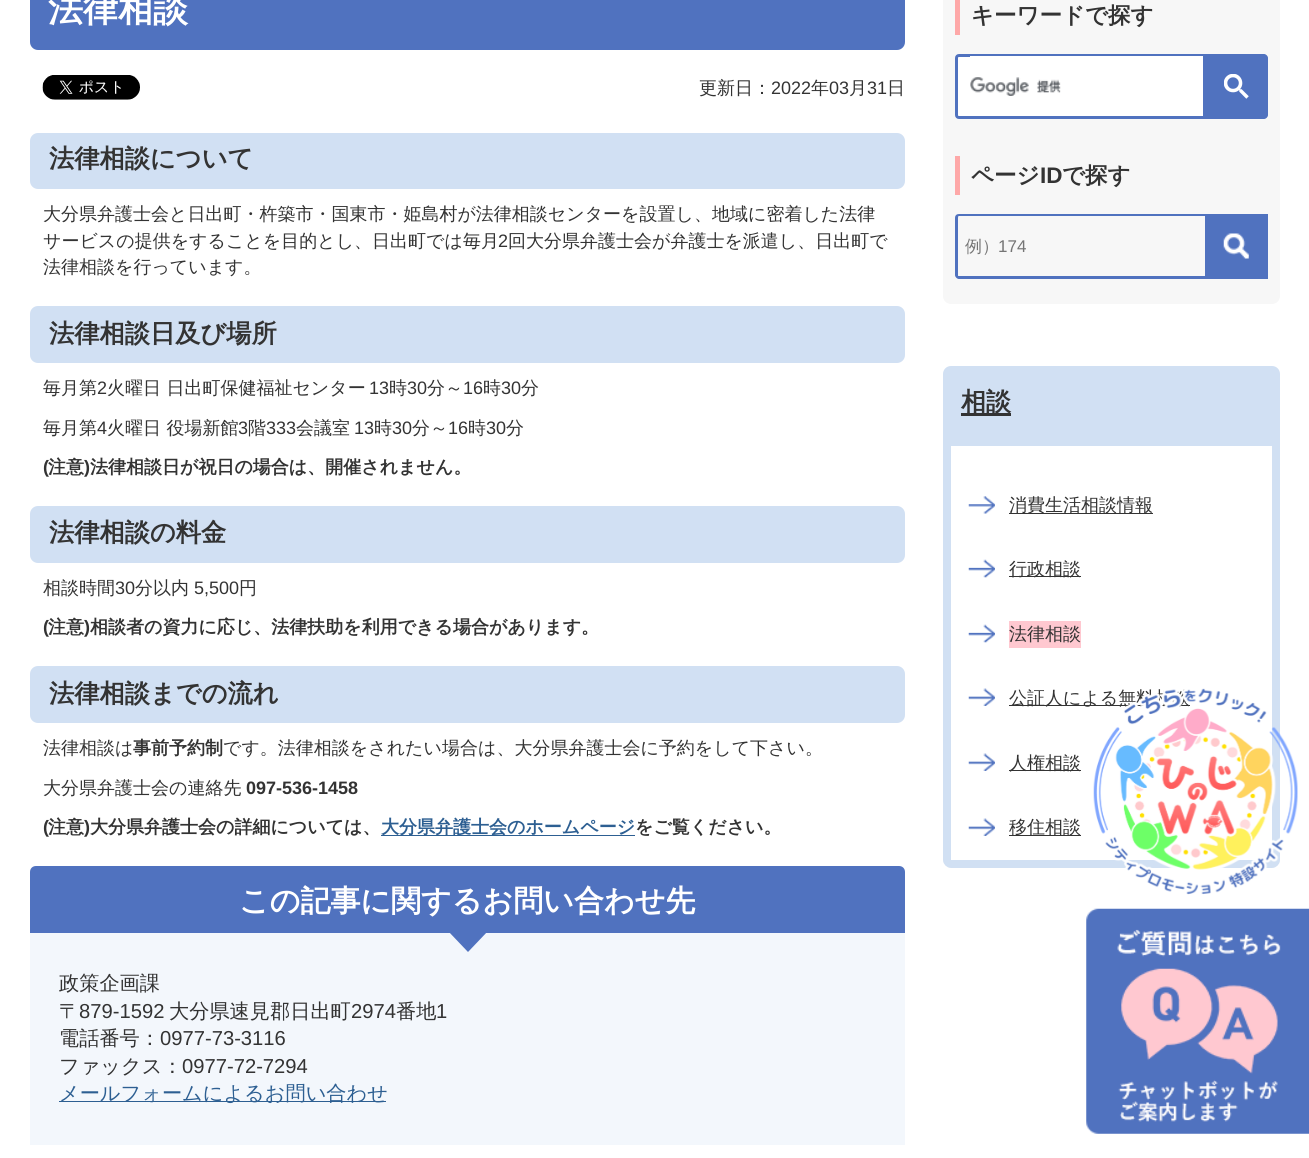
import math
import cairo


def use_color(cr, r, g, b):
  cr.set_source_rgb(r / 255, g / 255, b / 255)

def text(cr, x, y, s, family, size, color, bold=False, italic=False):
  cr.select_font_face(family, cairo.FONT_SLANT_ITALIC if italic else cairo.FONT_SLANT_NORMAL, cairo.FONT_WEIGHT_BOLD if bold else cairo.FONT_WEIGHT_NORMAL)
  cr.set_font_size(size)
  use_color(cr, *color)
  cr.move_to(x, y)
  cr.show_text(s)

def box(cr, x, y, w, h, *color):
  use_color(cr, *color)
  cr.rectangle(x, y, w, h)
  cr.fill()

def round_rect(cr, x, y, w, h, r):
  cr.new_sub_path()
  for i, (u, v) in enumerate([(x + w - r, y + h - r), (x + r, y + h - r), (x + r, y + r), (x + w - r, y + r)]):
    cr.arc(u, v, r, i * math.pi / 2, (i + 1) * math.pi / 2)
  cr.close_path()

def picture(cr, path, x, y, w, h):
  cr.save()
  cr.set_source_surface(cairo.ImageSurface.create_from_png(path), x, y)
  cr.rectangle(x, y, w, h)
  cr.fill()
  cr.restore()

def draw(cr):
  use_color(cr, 255, 255, 255)
  cr.paint()
  use_color(cr, 80, 114, 191)
  round_rect(cr, 30, -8, 875, 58, 8)
  cr.fill()
  picture(cr, "img_01.png", 42, 75, 98, 25)
  use_color(cr, 209, 224, 243)
  round_rect(cr, 30, 133, 875, 56, 8)
  cr.fill()
  round_rect(cr, 30, 306, 875, 57, 8)
  cr.fill()
  round_rect(cr, 30, 506, 875, 57, 8)
  cr.fill()
  round_rect(cr, 30, 666, 875, 57, 8)
  cr.fill()
  box(cr, 381, 835, 254, 1, 45, 95, 146)
  use_color(cr, 80, 114, 191)
  cr.new_path()
  cr.move_to(36, 866)
  cr.line_to(899, 866)
  cr.curve_to(902.5, 866, 905, 868.5, 905, 872)
  cr.line_to(905, 933)
  cr.line_to(30, 933)
  cr.line_to(30, 872)
  cr.curve_to(30, 868.5, 32.5, 866, 36, 866)
  cr.close_path()
  cr.fill()
  box(cr, 30, 933, 875, 212, 243, 247, 252)
  use_color(cr, 80, 114, 191)
  cr.new_path()
  cr.move_to(448, 931)
  cr.line_to(488, 931)
  cr.line_to(468, 952)
  cr.close_path()
  cr.fill()
  box(cr, 59, 1101, 327, 1, 45, 95, 146)
  use_color(cr, 247, 247, 247)
  round_rect(cr, 943, -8, 337, 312, 8)
  cr.fill()
  box(cr, 955, 0, 5, 35, 254, 168, 168)
  use_color(cr, 255, 255, 255)
  cr.new_path()
  cr.move_to(959, 55.5)
  cr.line_to(1203.5, 55.5)
  cr.line_to(1203.5, 117.5)
  cr.line_to(959, 117.5)
  cr.curve_to(957.5, 117.5, 956.5, 116.5, 956.5, 115)
  cr.line_to(956.5, 58)
  cr.curve_to(956.5, 56.5, 957.5, 55.5, 959, 55.5)
  cr.close_path()
  cr.fill_preserve()
  use_color(cr, 80, 114, 191)
  cr.set_line_width(3)
  cr.stroke()
  box(cr, 970, 56, 233, 60, 255, 255, 255)
  picture(cr, "img_02.png", 970, 77, 91, 19)
  use_color(cr, 80, 114, 191)
  cr.new_path()
  cr.move_to(1205, 54)
  cr.line_to(1264, 54)
  cr.curve_to(1266, 54, 1268, 56, 1268, 58)
  cr.line_to(1268, 115)
  cr.curve_to(1268, 117, 1266, 119, 1264, 119)
  cr.line_to(1205, 119)
  cr.close_path()
  cr.fill()
  picture(cr, "img_03.png", 1224, 74, 25, 25)
  box(cr, 955, 156, 5, 39, 254, 168, 168)
  use_color(cr, 80, 114, 191)
  cr.set_fill_rule(cairo.FILL_RULE_EVEN_ODD)
  cr.new_path()
  cr.move_to(959, 214)
  cr.line_to(1205, 214)
  cr.line_to(1205, 279)
  cr.line_to(959, 279)
  cr.curve_to(957, 279, 955, 277, 955, 275)
  cr.line_to(955, 218)
  cr.curve_to(955, 215, 957, 214, 959, 214)
  cr.close_path()
  cr.move_to(959, 216)
  cr.line_to(1205, 216)
  cr.line_to(1205, 276)
  cr.line_to(959, 276)
  cr.curve_to(958, 276, 958, 276, 958, 275)
  cr.line_to(958, 218)
  cr.curve_to(958, 217, 958, 216, 959, 216)
  cr.close_path()
  cr.fill()
  box(cr, 1205, 214, 63, 65, 80, 114, 191)
  picture(cr, "img_04.png", 1223, 233, 26, 26)
  use_color(cr, 209, 224, 243)
  cr.new_path()
  cr.move_to(951, 366)
  cr.line_to(1272, 366)
  cr.curve_to(1276.5, 366, 1280, 369.5, 1280, 374)
  cr.line_to(1280, 438)
  cr.line_to(943, 438)
  cr.line_to(943, 374)
  cr.curve_to(943, 369.5, 946.5, 366, 951, 366)
  cr.close_path()
  cr.fill()
  box(cr, 961, 413, 50, 3, 51, 51, 51)
  cr.new_path()
  cr.move_to(947, 442)
  cr.line_to(1276, 442)
  cr.line_to(1276, 860)
  cr.curve_to(1276, 862, 1274, 864, 1272, 864)
  cr.line_to(951, 864)
  cr.curve_to(949, 864, 947, 862, 947, 860)
  cr.close_path()
  use_color(cr, 209, 224, 243)
  cr.set_line_width(8)
  cr.stroke()
  picture(cr, "img_05.png", 968, 496, 27, 18)
  box(cr, 1009, 513, 144, 1, 51, 51, 51)
  picture(cr, "img_06.png", 968, 559, 27, 19)
  box(cr, 1009, 576, 72, 1, 51, 51, 51)
  picture(cr, "img_06.png", 968, 624, 27, 19)
  box(cr, 1009, 621, 72, 27, 255, 200, 208)
  picture(cr, "img_07.png", 968, 688, 27, 18)
  box(cr, 1009, 705, 181, 1, 51, 51, 51)
  picture(cr, "img_07.png", 968, 753, 27, 18)
  box(cr, 1009, 770, 72, 1, 51, 51, 51)
  picture(cr, "img_07.png", 968, 818, 27, 18)
  box(cr, 1009, 835, 72, 1, 51, 51, 51)
  picture(cr, "img_09.png", 1086, 908, 223, 226)
  text(cr, 48, 21, "法律相談", "WenQuanYi Zen Hei", 35, (255, 255, 255), bold=True)
  text(cr, 699, 94, "更新日：", "WenQuanYi Zen Hei Medium", 18, (51, 51, 51))
  text(cr, 771, 94, "2022", "Liberation Sans", 18, (51, 51, 51))
  text(cr, 811, 94, "年", "WenQuanYi Zen Hei Medium", 18, (51, 51, 51))
  text(cr, 829, 94, "03", "Liberation Sans", 18, (51, 51, 51))
  text(cr, 849, 94, "月", "WenQuanYi Zen Hei Medium", 18, (51, 51, 51))
  text(cr, 867, 94, "31", "Liberation Sans", 18, (51, 51, 51))
  text(cr, 887, 94, "日", "WenQuanYi Zen Hei Medium", 18, (51, 51, 51))
  text(cr, 49, 167, "法律相談について", "WenQuanYi Zen Hei", 25.25, (51, 51, 51), bold=True)
  text(cr, 43, 220, "大分県弁護士会と日出町・杵築市・国東市・姫島村が法律相談センターを設置し、地域に密着した法律", "WenQuanYi Zen Hei Medium", 18, (51, 51, 51))
  text(cr, 43, 247, "サービスの提供をすることを目的とし、日出町では毎月", "WenQuanYi Zen Hei Medium", 18, (51, 51, 51))
  text(cr, 498, 247, "2", "Liberation Sans", 18, (51, 51, 51))
  text(cr, 508, 247, "回大分県弁護士会が弁護士を派遣し、日出町で", "WenQuanYi Zen Hei Medium", 18, (51, 51, 51))
  text(cr, 43, 273, "法律相談を行っています。", "WenQuanYi Zen Hei Medium", 18, (51, 51, 51))
  text(cr, 49, 342, "法律相談日及び場所", "WenQuanYi Zen Hei", 25.25, (51, 51, 51), bold=True)
  text(cr, 43, 394, "毎月第", "WenQuanYi Zen Hei Medium", 18, (51, 51, 51))
  text(cr, 97, 394, "2", "Liberation Sans", 18, (51, 51, 51))
  text(cr, 107, 394, "火曜日 日出町保健福祉センター", "WenQuanYi Zen Hei Medium", 18, (51, 51, 51))
  text(cr, 369, 394, "13", "Liberation Sans", 18, (51, 51, 51))
  text(cr, 389, 394, "時", "WenQuanYi Zen Hei Medium", 18, (51, 51, 51))
  text(cr, 407, 394, "30", "Liberation Sans", 18, (51, 51, 51))
  text(cr, 427, 394, "分～", "WenQuanYi Zen Hei Medium", 18, (51, 51, 51))
  text(cr, 463, 394, "16", "Liberation Sans", 18, (51, 51, 51))
  text(cr, 483, 394, "時", "WenQuanYi Zen Hei Medium", 18, (51, 51, 51))
  text(cr, 501, 394, "30", "Liberation Sans", 18, (51, 51, 51))
  text(cr, 521, 394, "分", "WenQuanYi Zen Hei Medium", 18, (51, 51, 51))
  text(cr, 43, 434, "毎月第", "WenQuanYi Zen Hei Medium", 18, (51, 51, 51))
  text(cr, 97, 434, "4", "Liberation Sans", 18, (51, 51, 51))
  text(cr, 107, 434, "火曜日 役場新館", "WenQuanYi Zen Hei Medium", 18, (51, 51, 51))
  text(cr, 238, 434, "3", "Liberation Sans", 18, (51, 51, 51))
  text(cr, 248, 434, "階", "WenQuanYi Zen Hei Medium", 18, (51, 51, 51))
  text(cr, 266, 434, "333", "Liberation Sans", 18, (51, 51, 51))
  text(cr, 296, 434, "会議室", "WenQuanYi Zen Hei Medium", 18, (51, 51, 51))
  text(cr, 354, 434, "13", "Liberation Sans", 18, (51, 51, 51))
  text(cr, 374, 434, "時", "WenQuanYi Zen Hei Medium", 18, (51, 51, 51))
  text(cr, 392, 434, "30", "Liberation Sans", 18, (51, 51, 51))
  text(cr, 412, 434, "分～", "WenQuanYi Zen Hei Medium", 18, (51, 51, 51))
  text(cr, 448, 434, "16", "Liberation Sans", 18, (51, 51, 51))
  text(cr, 468, 434, "時", "WenQuanYi Zen Hei Medium", 18, (51, 51, 51))
  text(cr, 486, 434, "30", "Liberation Sans", 18, (51, 51, 51))
  text(cr, 506, 434, "分", "WenQuanYi Zen Hei Medium", 18, (51, 51, 51))
  text(cr, 43, 473, "(", "Liberation Sans", 18, (51, 51, 51), bold=True)
  text(cr, 48, 473, "注意", "WenQuanYi Zen Hei", 18, (51, 51, 51), bold=True)
  text(cr, 84, 473, ")", "Liberation Sans", 18, (51, 51, 51), bold=True)
  text(cr, 90, 473, "法律相談日が祝日の場合は、開催されません。", "WenQuanYi Zen Hei", 18, (51, 51, 51), bold=True)
  text(cr, 49, 541, "法律相談の料金", "WenQuanYi Zen Hei", 25.25, (51, 51, 51), bold=True)
  text(cr, 43, 594, "相談時間", "WenQuanYi Zen Hei Medium", 18, (51, 51, 51))
  text(cr, 115, 594, "30", "Liberation Sans", 18, (51, 51, 51))
  text(cr, 135, 594, "分以内", "WenQuanYi Zen Hei Medium", 18, (51, 51, 51))
  text(cr, 194, 594, "5,500", "Liberation Sans", 18, (51, 51, 51))
  text(cr, 239, 594, "円", "WenQuanYi Zen Hei Medium", 18, (51, 51, 51))
  text(cr, 43, 633, "(", "Liberation Sans", 18, (51, 51, 51), bold=True)
  text(cr, 48, 633, "注意", "WenQuanYi Zen Hei", 18, (51, 51, 51), bold=True)
  text(cr, 84, 633, ")", "Liberation Sans", 18, (51, 51, 51), bold=True)
  text(cr, 90, 633, "相談者の資力に応じ、法律扶助を利用できる場合があります。", "WenQuanYi Zen Hei", 18, (51, 51, 51), bold=True)
  text(cr, 49, 702, "法律相談までの流れ", "WenQuanYi Zen Hei", 25.25, (51, 51, 51), bold=True)
  text(cr, 43, 754, "法律相談は", "WenQuanYi Zen Hei Medium", 18, (51, 51, 51))
  text(cr, 133, 754, "事前予約制", "WenQuanYi Zen Hei", 18, (51, 51, 51), bold=True)
  text(cr, 223, 754, "です。法律相談をされたい場合は、大分県弁護士会に予約をして下さい。", "WenQuanYi Zen Hei Medium", 18, (51, 51, 51))
  text(cr, 43, 794, "大分県弁護士会の連絡先", "WenQuanYi Zen Hei Medium", 18, (51, 51, 51))
  text(cr, 246, 794, "097-536-1458", "Liberation Sans", 18, (51, 51, 51), bold=True)
  text(cr, 43, 833, "(", "Liberation Sans", 18, (51, 51, 51), bold=True)
  text(cr, 48, 833, "注意", "WenQuanYi Zen Hei", 18, (51, 51, 51), bold=True)
  text(cr, 84, 833, ")", "Liberation Sans", 18, (51, 51, 51), bold=True)
  text(cr, 90, 833, "大分県弁護士会の詳細については、", "WenQuanYi Zen Hei", 18, (51, 51, 51), bold=True)
  text(cr, 381, 833, "大分県弁護士会のホームページ", "WenQuanYi Zen Hei", 18, (45, 95, 146), bold=True)
  text(cr, 635, 833, "をご覧ください。", "WenQuanYi Zen Hei", 18, (51, 51, 51), bold=True)
  text(cr, 239, 911, "この記事に関するお問い合わせ先", "WenQuanYi Zen Hei", 30, (255, 255, 255), bold=True)
  text(cr, 59, 990, "政策企画課", "WenQuanYi Zen Hei Medium", 20.2, (51, 51, 51))
  text(cr, 59, 1018, "〒", "WenQuanYi Zen Hei Medium", 20.2, (51, 51, 51))
  text(cr, 79, 1018, "879-1592", "Liberation Sans", 20.2, (51, 51, 51))
  text(cr, 169, 1018, "大分県速見郡日出町", "WenQuanYi Zen Hei Medium", 20.2, (51, 51, 51))
  text(cr, 351, 1018, "2974", "Liberation Sans", 20.2, (51, 51, 51))
  text(cr, 396, 1018, "番地", "WenQuanYi Zen Hei Medium", 20.2, (51, 51, 51))
  text(cr, 436, 1018, "1", "Liberation Sans", 20.2, (51, 51, 51))
  text(cr, 59, 1045, "電話番号：", "WenQuanYi Zen Hei Medium", 20.2, (51, 51, 51))
  text(cr, 160, 1045, "0977-73-3116", "Liberation Sans", 20.2, (51, 51, 51))
  text(cr, 59, 1073, "ファックス：", "WenQuanYi Zen Hei Medium", 20.2, (51, 51, 51))
  text(cr, 182, 1073, "0977-72-7294", "Liberation Sans", 20.2, (51, 51, 51))
  text(cr, 59, 1100, "メールフォームによるお問い合わせ", "WenQuanYi Zen Hei Medium", 20.2, (45, 95, 146))
  text(cr, 971, 23, "キーワードで探す", "WenQuanYi Zen Hei", 22.5, (51, 51, 51), bold=True)
  text(cr, 971, 183, "ページ", "WenQuanYi Zen Hei", 22.5, (51, 51, 51), bold=True)
  text(cr, 1040, 183, "ID", "Liberation Sans", 22.5, (51, 51, 51), bold=True)
  text(cr, 1062, 183, "で探す", "WenQuanYi Zen Hei", 22.5, (51, 51, 51), bold=True)
  text(cr, 965, 252, "例）", "WenQuanYi Zen Hei Medium", 17, (117, 117, 117))
  text(cr, 998, 252, "174", "Liberation Sans", 17, (117, 117, 117))
  text(cr, 961, 410, "相談", "WenQuanYi Zen Hei", 25, (51, 51, 51), bold=True)
  text(cr, 1009, 511, "消費生活相談情報", "WenQuanYi Zen Hei Medium", 18, (51, 51, 51))
  text(cr, 1009, 575, "行政相談", "WenQuanYi Zen Hei Medium", 18, (51, 51, 51))
  text(cr, 1009, 640, "法律相談", "WenQuanYi Zen Hei Medium", 18, (51, 51, 51))
  text(cr, 1009, 704, "公証人による無料相談", "WenQuanYi Zen Hei Medium", 18, (51, 51, 51))
  text(cr, 1009, 769, "人権相談", "WenQuanYi Zen Hei Medium", 18, (51, 51, 51))
  text(cr, 1009, 833, "移住相談", "WenQuanYi Zen Hei Medium", 18, (51, 51, 51))
  picture(cr, "img_08.png", 1093, 688, 205, 207)


surface = cairo.ImageSurface(cairo.FORMAT_RGB24, 1309, 1158)
cr = cairo.Context(surface)
options = cairo.FontOptions()
options.set_hint_metrics(cairo.HINT_METRICS_OFF)
options.set_hint_style(cairo.HINT_STYLE_NONE)
cr.set_font_options(options)
cr.set_miter_limit(4)
draw(cr)
surface.write_to_png("out.png")
